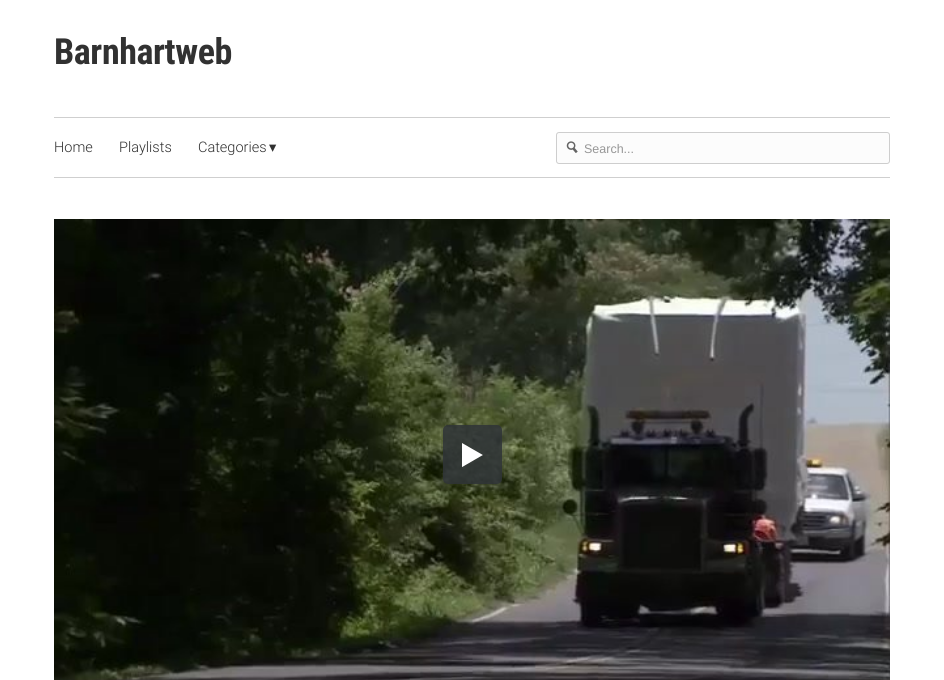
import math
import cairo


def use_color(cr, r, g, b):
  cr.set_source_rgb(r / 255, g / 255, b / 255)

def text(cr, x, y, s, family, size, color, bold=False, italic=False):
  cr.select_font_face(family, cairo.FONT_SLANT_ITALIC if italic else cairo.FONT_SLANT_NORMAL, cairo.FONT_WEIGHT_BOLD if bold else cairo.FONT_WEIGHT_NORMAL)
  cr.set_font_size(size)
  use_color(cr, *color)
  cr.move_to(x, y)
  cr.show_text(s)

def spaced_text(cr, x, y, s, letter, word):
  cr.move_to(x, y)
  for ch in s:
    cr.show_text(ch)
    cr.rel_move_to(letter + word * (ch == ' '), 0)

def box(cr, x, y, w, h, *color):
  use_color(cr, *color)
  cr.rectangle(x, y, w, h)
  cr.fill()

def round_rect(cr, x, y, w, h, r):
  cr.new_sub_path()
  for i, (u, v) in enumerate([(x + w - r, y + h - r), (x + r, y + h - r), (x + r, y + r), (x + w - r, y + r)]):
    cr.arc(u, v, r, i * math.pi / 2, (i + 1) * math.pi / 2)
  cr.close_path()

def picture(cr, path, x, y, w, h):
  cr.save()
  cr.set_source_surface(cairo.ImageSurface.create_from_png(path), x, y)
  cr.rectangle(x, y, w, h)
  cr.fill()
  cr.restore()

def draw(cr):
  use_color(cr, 255, 255, 255)
  cr.paint()
  box(cr, 54, 117, 836, 1, 207, 207, 207)
  box(cr, 54, 177, 836, 1, 207, 207, 207)
  use_color(cr, 252, 252, 252)
  round_rect(cr, 556.5, 132.5, 333, 31, 2.5)
  cr.fill_preserve()
  use_color(cr, 206, 206, 206)
  cr.set_line_width(1)
  cr.stroke()
  picture(cr, "img_01.png", 566, 141, 12, 12)
  picture(cr, "img_02.png", 54, 219, 836, 461)
  cr.select_font_face("Roboto Condensed", cairo.FONT_SLANT_NORMAL, cairo.FONT_WEIGHT_BOLD)
  cr.set_font_size(36)
  use_color(cr, 49, 49, 49)
  spaced_text(cr, 54, 64, "Barnhartweb", -0.4, 0)
  text(cr, 54, 152, "Home", "Roboto Light", 14.5, (49, 49, 49))
  text(cr, 119, 152, "Playlists", "Roboto Light", 14.5, (49, 49, 49))
  text(cr, 198, 152, "Categories", "Roboto Light", 14.5, (49, 49, 49))
  text(cr, 269, 152, "▾", "DejaVu Sans", 14.5, (49, 49, 49))
  text(cr, 584, 153, "Search...", "Liberation Sans", 12.5, (151, 151, 151))


surface = cairo.ImageSurface(cairo.FORMAT_RGB24, 944, 680)
cr = cairo.Context(surface)
options = cairo.FontOptions()
options.set_hint_metrics(cairo.HINT_METRICS_OFF)
options.set_hint_style(cairo.HINT_STYLE_NONE)
cr.set_font_options(options)
cr.set_miter_limit(4)
draw(cr)
surface.write_to_png("out.png")
